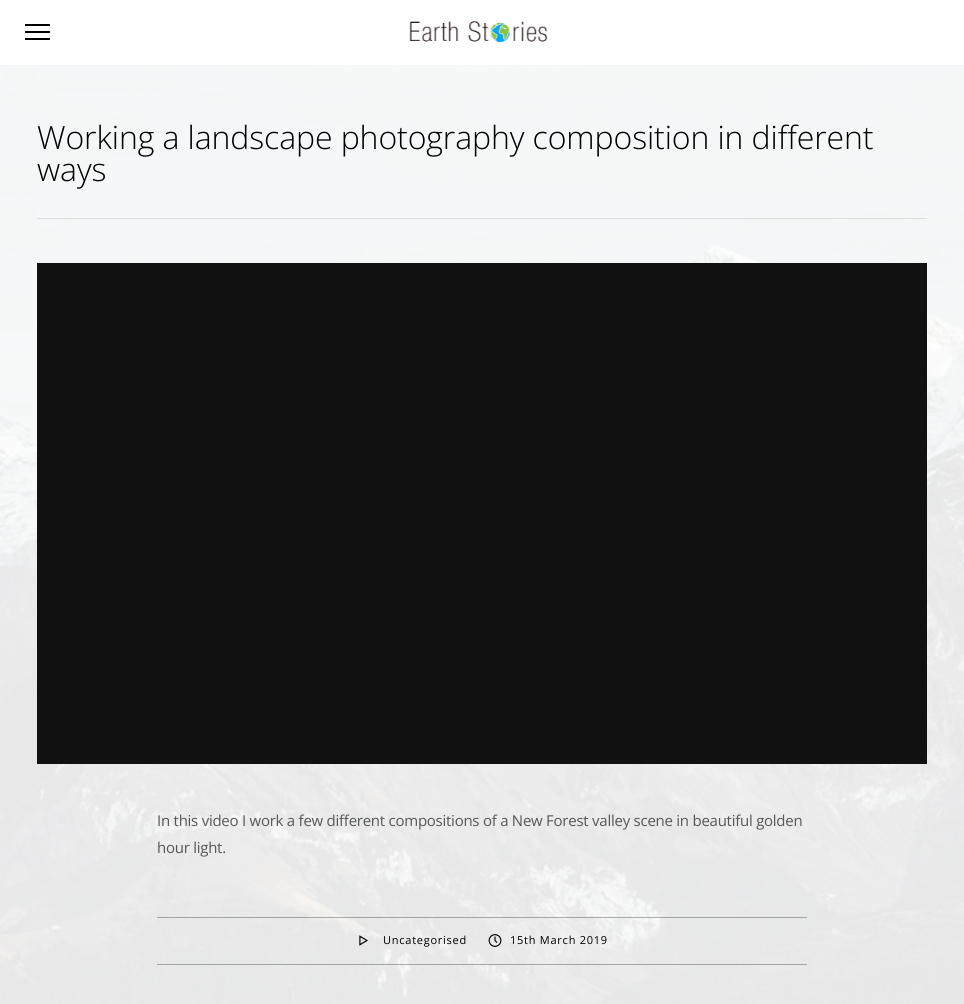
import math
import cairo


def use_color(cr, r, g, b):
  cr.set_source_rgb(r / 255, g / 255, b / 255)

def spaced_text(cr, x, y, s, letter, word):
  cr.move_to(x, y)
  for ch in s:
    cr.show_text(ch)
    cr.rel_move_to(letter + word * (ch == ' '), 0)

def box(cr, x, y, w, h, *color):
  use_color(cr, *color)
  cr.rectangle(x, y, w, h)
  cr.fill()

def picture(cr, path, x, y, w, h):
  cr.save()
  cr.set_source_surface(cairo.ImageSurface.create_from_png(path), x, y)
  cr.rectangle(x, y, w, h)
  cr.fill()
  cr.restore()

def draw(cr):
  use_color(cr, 255, 255, 255)
  cr.paint()
  box(cr, 25, 31, 25, 2, 0, 0, 0)
  box(cr, 25, 24, 25, 2, 0, 0, 0)
  box(cr, 25, 38, 25, 2, 0, 0, 0)
  picture(cr, "img_01.png", 409, 21, 139, 22)
  picture(cr, "img_02.png", 0, 65, 964, 939)
  box(cr, 37, 218, 890, 1, 221, 222, 223)
  box(cr, 37, 263, 890, 501, 17, 17, 17)
  cr.set_source_rgba(0, 0, 0, 0.3)
  cr.rectangle(157, 917, 650, 1)
  cr.fill()
  cr.rectangle(157, 964, 650, 1)
  cr.fill()
  picture(cr, "img_03.png", 359, 935, 9, 11)
  picture(cr, "img_04.png", 488, 934, 14, 13)
  cr.select_font_face("Open Sans Light")
  cr.set_font_size(32)
  use_color(cr, 0, 0, 0)
  spaced_text(cr, 37, 149, "Working a landscape photography composition in different", -0.1, 0)
  spaced_text(cr, 37, 181, "ways", -0.1, 0)
  cr.select_font_face("Open Sans")
  cr.set_font_size(15)
  use_color(cr, 87, 87, 87)
  spaced_text(cr, 157, 826, "In this video I work a few different compositions of a New Forest valley scene in beautiful golden", -0.25, 0)
  spaced_text(cr, 157, 853, "hour light.", -0.25, 0)
  cr.set_font_size(11)
  use_color(cr, 0, 0, 0)
  spaced_text(cr, 383, 944, "Uncategorised", 0.75, 0)
  spaced_text(cr, 510, 944, "15th March 2019", 0.75, 0)


surface = cairo.ImageSurface(cairo.FORMAT_RGB24, 964, 1004)
cr = cairo.Context(surface)
options = cairo.FontOptions()
options.set_hint_metrics(cairo.HINT_METRICS_OFF)
options.set_hint_style(cairo.HINT_STYLE_NONE)
cr.set_font_options(options)
cr.set_miter_limit(4)
draw(cr)
surface.write_to_png("out.png")
